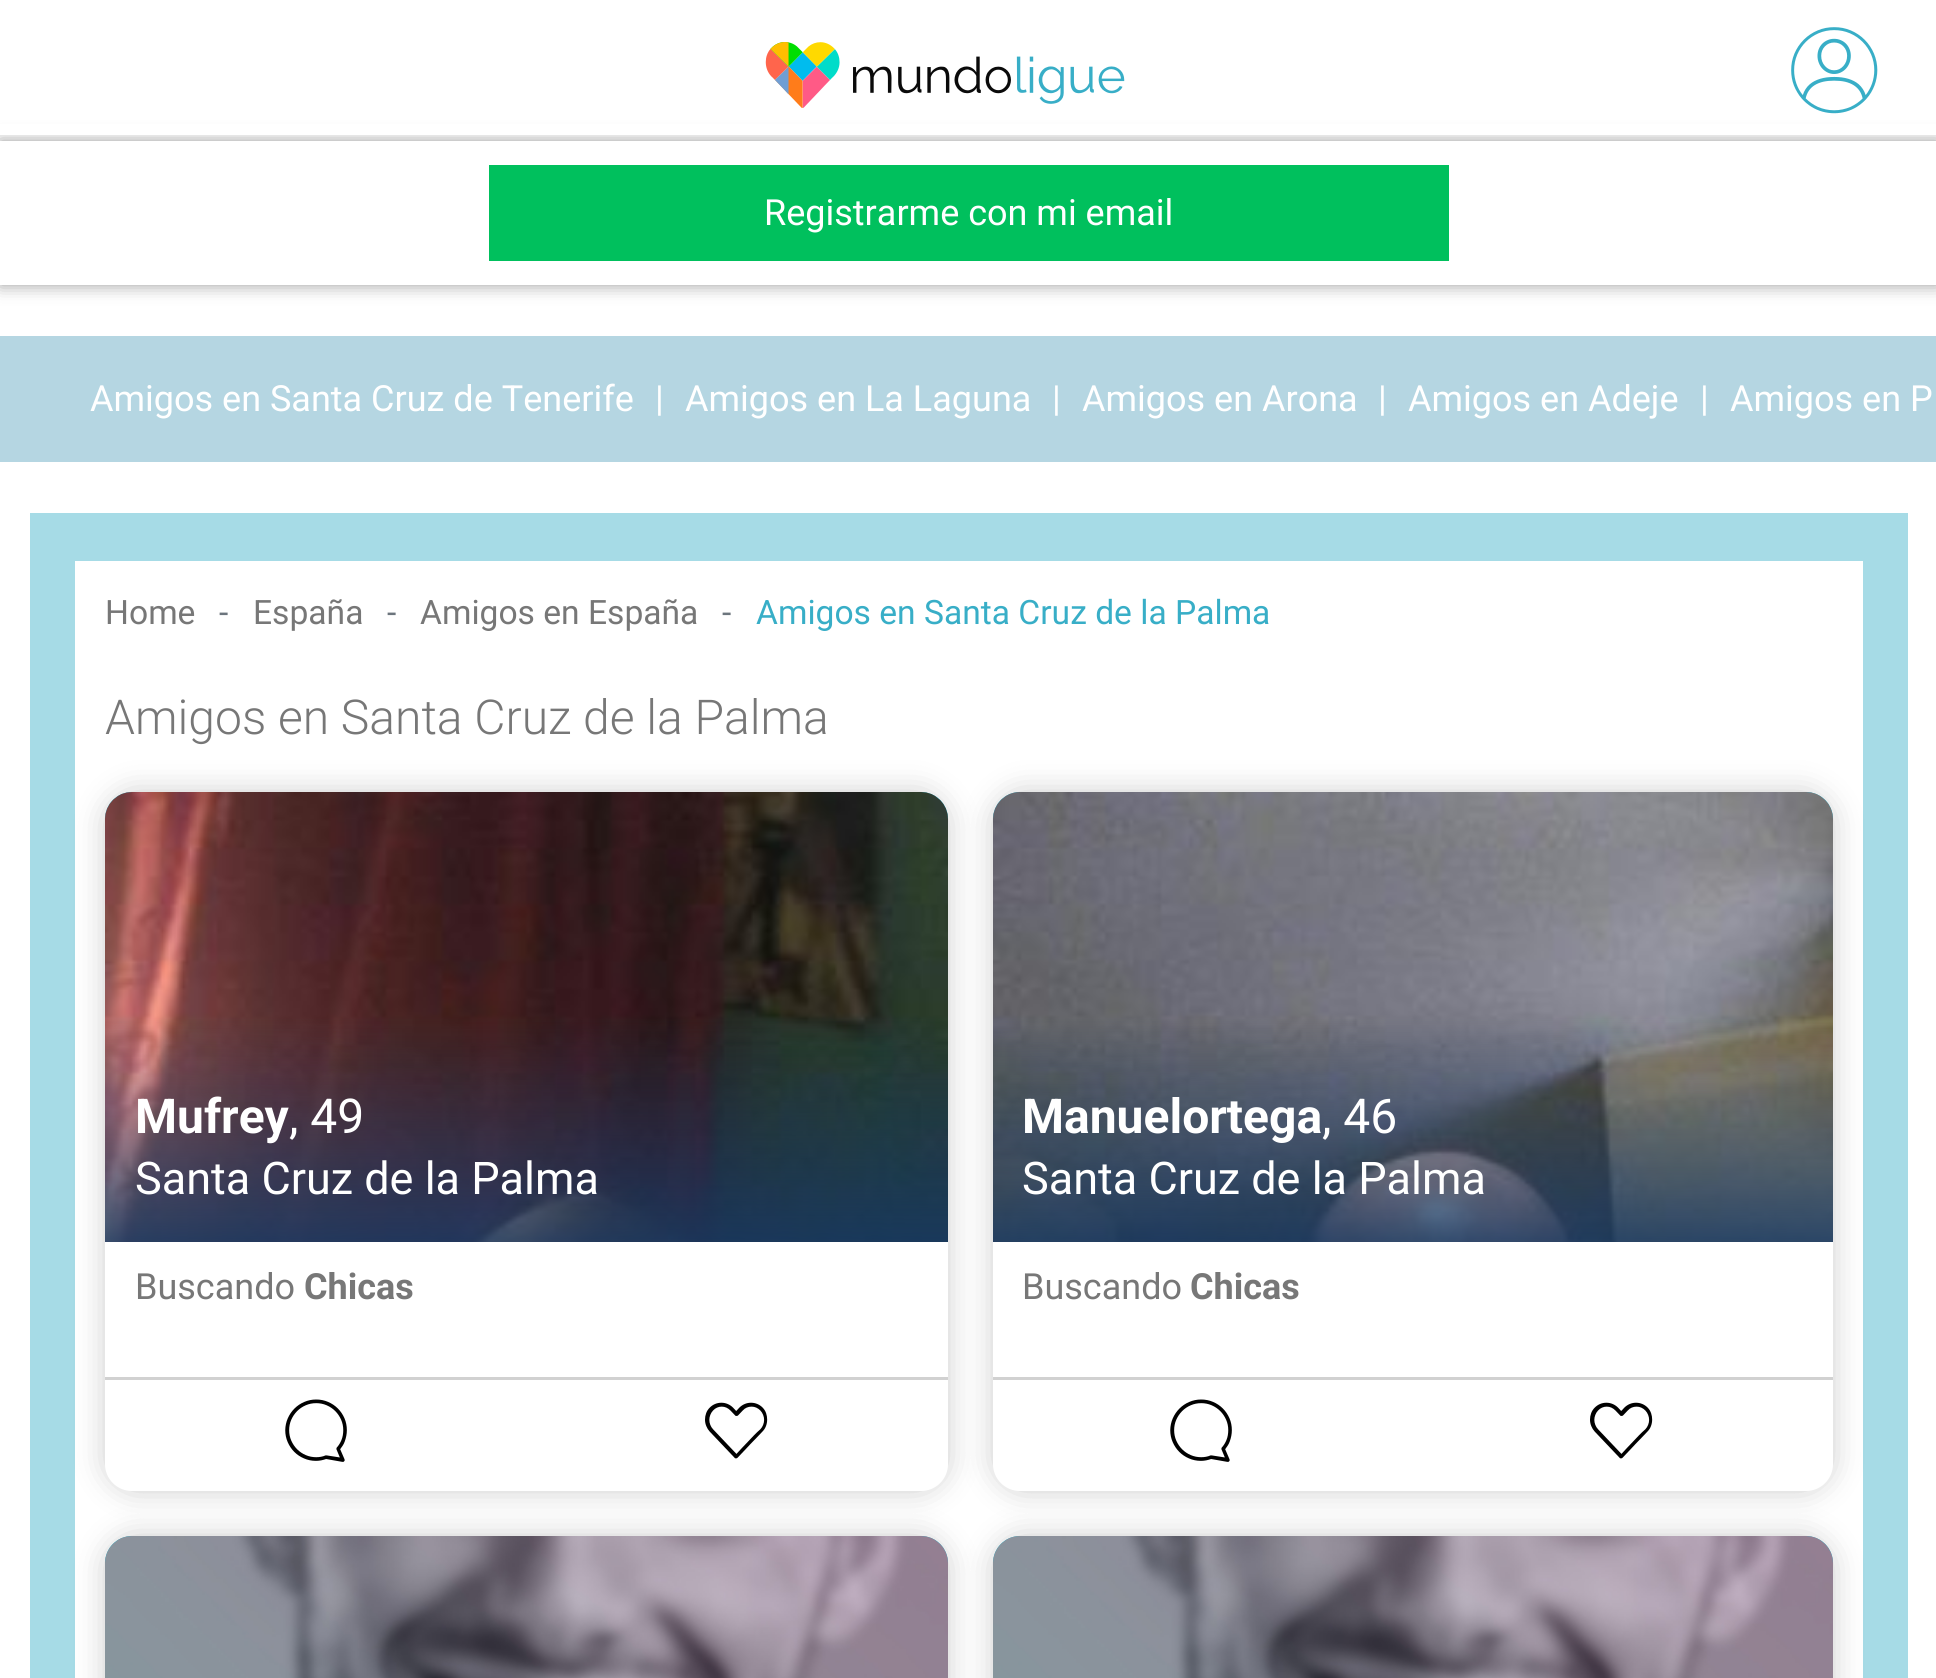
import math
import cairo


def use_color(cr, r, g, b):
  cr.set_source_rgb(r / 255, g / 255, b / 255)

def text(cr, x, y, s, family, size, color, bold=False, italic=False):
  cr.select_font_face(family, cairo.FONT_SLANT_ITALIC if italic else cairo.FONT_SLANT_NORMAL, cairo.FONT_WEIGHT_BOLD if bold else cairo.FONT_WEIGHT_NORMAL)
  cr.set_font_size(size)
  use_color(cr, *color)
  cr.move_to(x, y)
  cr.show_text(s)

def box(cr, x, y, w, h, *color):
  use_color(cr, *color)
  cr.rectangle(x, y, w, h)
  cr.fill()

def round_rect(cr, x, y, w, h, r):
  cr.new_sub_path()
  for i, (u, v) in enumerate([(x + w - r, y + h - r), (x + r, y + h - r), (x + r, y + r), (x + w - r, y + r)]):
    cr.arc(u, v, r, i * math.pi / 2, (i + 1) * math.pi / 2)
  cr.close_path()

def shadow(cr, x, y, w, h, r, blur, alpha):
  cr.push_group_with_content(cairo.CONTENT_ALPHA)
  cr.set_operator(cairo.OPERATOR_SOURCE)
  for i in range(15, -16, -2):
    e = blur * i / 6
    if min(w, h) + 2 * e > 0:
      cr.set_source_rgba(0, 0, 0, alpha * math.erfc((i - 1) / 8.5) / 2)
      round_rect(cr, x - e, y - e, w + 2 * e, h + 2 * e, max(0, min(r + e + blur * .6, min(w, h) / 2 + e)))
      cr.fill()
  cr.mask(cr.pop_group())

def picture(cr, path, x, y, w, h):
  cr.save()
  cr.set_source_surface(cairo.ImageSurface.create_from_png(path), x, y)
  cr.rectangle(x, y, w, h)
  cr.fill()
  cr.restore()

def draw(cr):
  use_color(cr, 255, 255, 255)
  cr.paint()
  cr.save()
  cr.set_fill_rule(cairo.FILL_RULE_EVEN_ODD)
  cr.new_path()
  cr.move_to(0, 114)
  cr.line_to(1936, 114)
  cr.line_to(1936, 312)
  cr.line_to(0, 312)
  cr.close_path()
  cr.move_to(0, 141)
  cr.line_to(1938, 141)
  cr.line_to(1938, 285)
  cr.line_to(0, 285)
  cr.close_path()
  cr.clip()
  use_color(cr, 0, 0, 0)
  shadow(cr, 0, 141, 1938, 144, 0, 8.5, 0.4)
  cr.restore()
  box(cr, 0, 124, 1936, 11, 255, 255, 255)
  picture(cr, "img_01.png", 765, 42, 360, 66)
  picture(cr, "img_02.png", 1791, 27, 87, 87)
  box(cr, 489, 165, 960, 96, 0, 192, 93)
  box(cr, 0, 336, 1936, 126, 181, 214, 226)
  box(cr, 30, 513, 1878, 1165, 166, 219, 230)
  box(cr, 75, 561, 1788, 1117, 255, 255, 255)
  use_color(cr, 0, 0, 0)
  shadow(cr, 105, 792, 843, 699, 30, 15, 0.2)
  use_color(cr, 255, 255, 255)
  round_rect(cr, 105, 792, 843, 699, 30)
  cr.fill()
  cr.new_path()
  cr.move_to(105, 1377)
  cr.line_to(948, 1377)
  cr.line_to(948, 1464)
  cr.curve_to(948, 1479, 936, 1491, 921, 1491)
  cr.line_to(132, 1491)
  cr.curve_to(117, 1491, 105, 1479, 105, 1464)
  cr.close_path()
  cr.fill()
  box(cr, 105, 1377, 843, 3, 209, 209, 209)
  use_color(cr, 0, 0, 0)
  shadow(cr, 993, 792, 840, 699, 30, 15, 0.2)
  use_color(cr, 56, 174, 199)
  cr.new_path()
  cr.move_to(132, 792)
  cr.line_to(921, 792)
  cr.curve_to(936, 792, 948, 804, 948, 819)
  cr.line_to(948, 1242)
  cr.line_to(105, 1242)
  cr.line_to(105, 819)
  cr.curve_to(105, 804, 117, 792, 132, 792)
  cr.close_path()
  cr.fill()
  picture(cr, "img_03.png", 105, 792, 843, 450)
  picture(cr, "img_04.png", 285, 1399, 62, 63)
  picture(cr, "img_05.png", 705, 1402, 63, 57)
  use_color(cr, 255, 255, 255)
  round_rect(cr, 993, 792, 840, 699, 30)
  cr.fill()
  use_color(cr, 56, 174, 199)
  cr.new_path()
  cr.move_to(1020, 792)
  cr.line_to(1806, 792)
  cr.curve_to(1821, 792, 1833, 804, 1833, 819)
  cr.line_to(1833, 1242)
  cr.line_to(993, 1242)
  cr.line_to(993, 819)
  cr.curve_to(993, 804, 1005, 792, 1020, 792)
  cr.close_path()
  cr.fill()
  picture(cr, "img_06.png", 993, 792, 840, 450)
  use_color(cr, 255, 255, 255)
  cr.new_path()
  cr.move_to(993, 1377)
  cr.line_to(1833, 1377)
  cr.line_to(1833, 1464)
  cr.curve_to(1833, 1479, 1821, 1491, 1806, 1491)
  cr.line_to(1020, 1491)
  cr.curve_to(1005, 1491, 993, 1479, 993, 1464)
  cr.close_path()
  cr.fill()
  box(cr, 993, 1377, 840, 3, 209, 209, 209)
  picture(cr, "img_04.png", 1170, 1399, 62, 63)
  picture(cr, "img_05.png", 1590, 1402, 63, 57)
  use_color(cr, 0, 0, 0)
  shadow(cr, 105, 1536, 843, 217, 30, 15, 0.2)
  shadow(cr, 993, 1536, 840, 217, 30, 15, 0.2)
  use_color(cr, 56, 174, 199)
  cr.new_path()
  cr.move_to(132, 1536)
  cr.line_to(921, 1536)
  cr.curve_to(936, 1536, 948, 1548, 948, 1563)
  cr.line_to(948, 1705)
  cr.line_to(105, 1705)
  cr.line_to(105, 1563)
  cr.curve_to(105, 1548, 117, 1536, 132, 1536)
  cr.close_path()
  cr.fill()
  picture(cr, "img_07.png", 105, 1536, 843, 142)
  cr.new_path()
  cr.move_to(1020, 1536)
  cr.line_to(1806, 1536)
  cr.curve_to(1821, 1536, 1833, 1548, 1833, 1563)
  cr.line_to(1833, 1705)
  cr.line_to(993, 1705)
  cr.line_to(993, 1563)
  cr.curve_to(993, 1548, 1005, 1536, 1020, 1536)
  cr.close_path()
  cr.fill()
  picture(cr, "img_08.png", 993, 1536, 840, 142)
  text(cr, 764, 225, "Registrarme con mi email", "Roboto", 36, (255, 255, 255))
  text(cr, 90, 411, "Amigos en Santa Cruz de Tenerife", "Roboto", 36, (255, 255, 255))
  text(cr, 655, 411, "|", "Roboto", 36, (255, 255, 255))
  text(cr, 685, 411, "Amigos en La Laguna", "Roboto", 36, (255, 255, 255))
  text(cr, 1052, 411, "|", "Roboto", 36, (255, 255, 255))
  text(cr, 1082, 411, "Amigos en Arona", "Roboto", 36, (255, 255, 255))
  text(cr, 1378, 411, "|", "Roboto", 36, (255, 255, 255))
  text(cr, 1408, 411, "Amigos en Adeje", "Roboto", 36, (255, 255, 255))
  text(cr, 1700, 411, "|", "Roboto", 36, (255, 255, 255))
  text(cr, 1730, 411, "Amigos en P", "Roboto", 36, (255, 255, 255))
  text(cr, 105, 624, "Home", "Roboto", 33.6, (119, 119, 119))
  text(cr, 219, 624, "-", "Roboto", 33.6, (108, 117, 125))
  text(cr, 253, 624, "España", "Roboto", 33.6, (119, 119, 119))
  text(cr, 387, 624, "-", "Roboto", 33.6, (108, 117, 125))
  text(cr, 420, 624, "Amigos en España", "Roboto", 33.6, (119, 119, 119))
  text(cr, 722, 624, "-", "Roboto", 33.6, (108, 117, 125))
  text(cr, 756, 624, "Amigos en Santa Cruz de la Palma", "Roboto", 33.6, (56, 174, 199))
  text(cr, 105, 734, "Amigos en Santa Cruz de la Palma", "Roboto Light", 48, (119, 119, 119))
  text(cr, 135, 1133, "Mufrey", "Roboto", 48, (255, 255, 255), bold=True)
  text(cr, 289, 1133, ", 49", "Roboto", 48, (255, 255, 255))
  text(cr, 135, 1194, "Santa Cruz de la Palma", "Roboto", 45, (255, 255, 255))
  text(cr, 135, 1299, "Buscando", "Roboto", 36, (119, 119, 119))
  text(cr, 304, 1299, "Chicas", "Roboto", 36, (119, 119, 119), bold=True)
  text(cr, 1022, 1133, "Manuelortega", "Roboto", 48, (255, 255, 255), bold=True)
  text(cr, 1322, 1133, ", 46", "Roboto", 48, (255, 255, 255))
  text(cr, 1022, 1194, "Santa Cruz de la Palma", "Roboto", 45, (255, 255, 255))
  text(cr, 1022, 1299, "Buscando", "Roboto", 36, (119, 119, 119))
  text(cr, 1190, 1299, "Chicas", "Roboto", 36, (119, 119, 119), bold=True)


surface = cairo.ImageSurface(cairo.FORMAT_RGB24, 1936, 1678)
cr = cairo.Context(surface)
options = cairo.FontOptions()
options.set_hint_metrics(cairo.HINT_METRICS_OFF)
options.set_hint_style(cairo.HINT_STYLE_NONE)
cr.set_font_options(options)
cr.set_miter_limit(4)
draw(cr)
surface.write_to_png("out.png")
